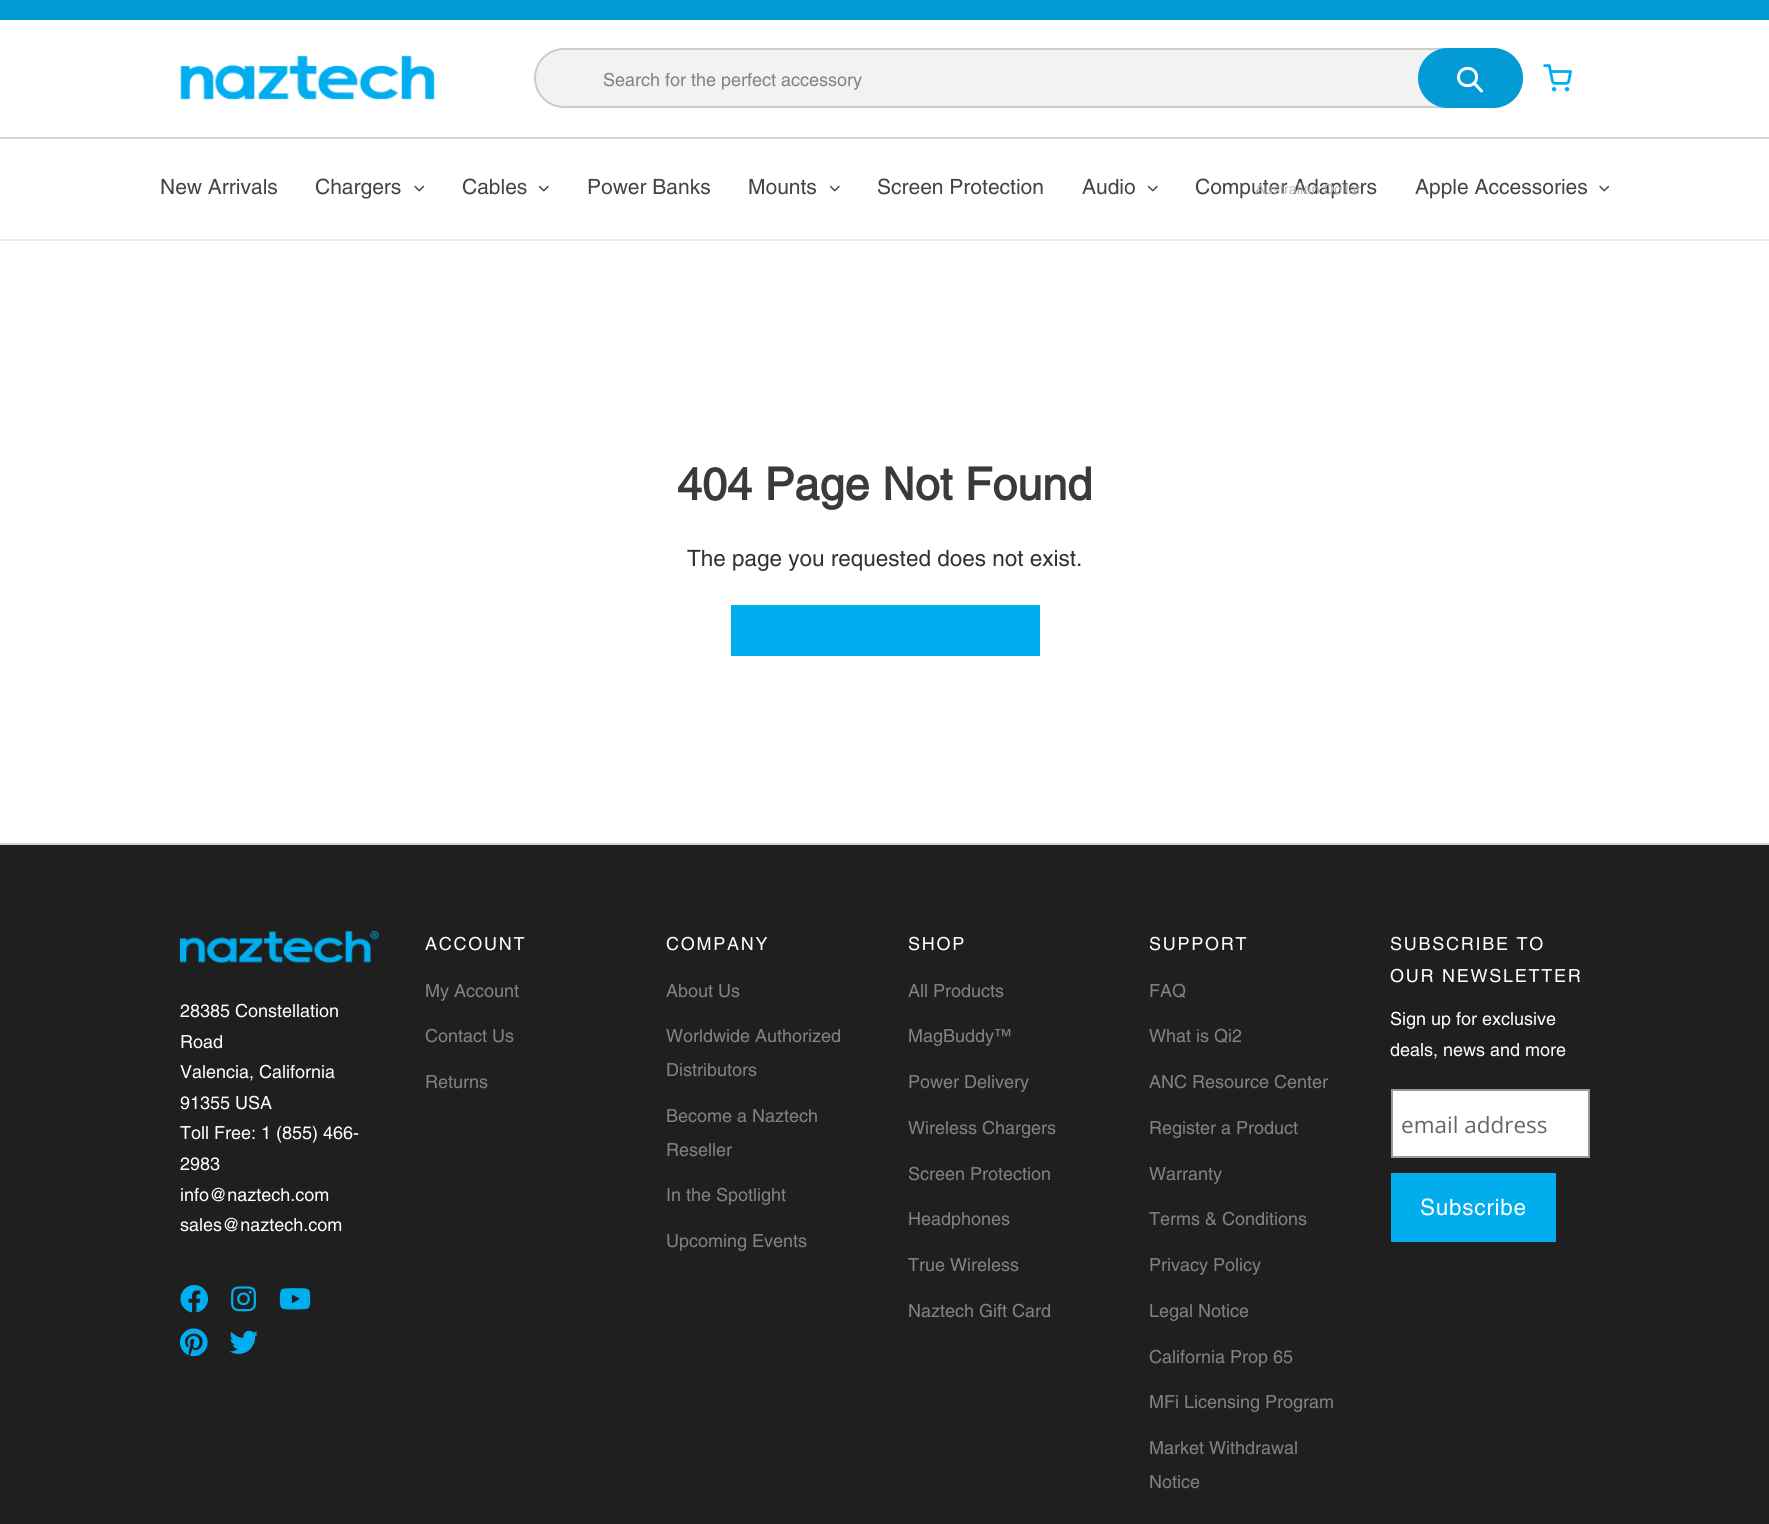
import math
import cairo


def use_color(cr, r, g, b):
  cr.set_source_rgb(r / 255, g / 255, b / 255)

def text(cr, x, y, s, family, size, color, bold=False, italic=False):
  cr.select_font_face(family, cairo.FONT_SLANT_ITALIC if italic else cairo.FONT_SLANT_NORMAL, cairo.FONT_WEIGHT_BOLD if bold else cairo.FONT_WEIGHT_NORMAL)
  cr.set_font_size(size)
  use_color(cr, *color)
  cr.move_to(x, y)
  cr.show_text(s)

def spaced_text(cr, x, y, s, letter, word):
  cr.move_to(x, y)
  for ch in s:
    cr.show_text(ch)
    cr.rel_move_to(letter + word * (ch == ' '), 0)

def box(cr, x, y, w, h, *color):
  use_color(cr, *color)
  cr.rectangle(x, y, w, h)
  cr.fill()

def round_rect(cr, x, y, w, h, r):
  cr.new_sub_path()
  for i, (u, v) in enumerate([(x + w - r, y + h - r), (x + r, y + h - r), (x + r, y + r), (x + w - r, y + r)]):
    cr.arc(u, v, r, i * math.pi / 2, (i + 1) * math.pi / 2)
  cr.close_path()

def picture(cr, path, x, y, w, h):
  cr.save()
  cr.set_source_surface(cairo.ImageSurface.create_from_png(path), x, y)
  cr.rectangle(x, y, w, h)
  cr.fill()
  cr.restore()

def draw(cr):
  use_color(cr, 255, 255, 255)
  cr.paint()
  box(cr, 0, 239, 1769, 2, 235, 235, 235)
  picture(cr, "img_01.png", 180, 55, 255, 45)
  use_color(cr, 242, 242, 242)
  round_rect(cr, 535, 49, 987, 58, 29)
  cr.fill_preserve()
  use_color(cr, 204, 204, 204)
  cr.stroke()
  use_color(cr, 2, 155, 213)
  round_rect(cr, 1418, 48, 105, 60, 30)
  cr.fill()
  cr.new_path()
  cr.move_to(1481.5, 91)
  cr.line_to(1474, 83)
  cr.close_path()
  cr.move_to(1476.5, 77)
  cr.curve_to(1476.5, 88.5, 1458.5, 88.5, 1458.5, 77)
  cr.curve_to(1459, 65.5, 1476.5, 65.5, 1476.5, 77)
  cr.close_path()
  use_color(cr, 255, 255, 255)
  cr.set_line_width(3)
  cr.set_line_cap(cairo.LINE_CAP_ROUND)
  cr.set_line_join(cairo.LINE_JOIN_ROUND)
  cr.stroke()
  picture(cr, "img_02.png", 1543, 64, 29, 28)
  box(cr, 0, 137, 1769, 2, 214, 214, 214)
  picture(cr, "img_03.png", 414, 185, 11, 7)
  picture(cr, "img_04.png", 539, 185, 10, 7)
  picture(cr, "img_04.png", 830, 185, 10, 7)
  picture(cr, "img_04.png", 1148, 185, 10, 7)
  picture(cr, "img_03.png", 1599, 185, 11, 7)
  box(cr, 0, 0, 1769, 20, 2, 155, 213)
  box(cr, 731, 605, 309, 51, 0, 174, 239)
  box(cr, 0, 845, 1769, 679, 31, 31, 31)
  box(cr, 0, 843, 1769, 2, 214, 214, 214)
  picture(cr, "img_05.png", 180, 931, 199, 32)
  picture(cr, "img_06.png", 180, 1285, 29, 28)
  picture(cr, "img_07.png", 231, 1286, 25, 26)
  picture(cr, "img_08.png", 279, 1288, 32, 22)
  picture(cr, "img_09.png", 180, 1328, 28, 29)
  picture(cr, "img_10.png", 229, 1330, 29, 24)
  use_color(cr, 255, 255, 255)
  cr.rectangle(1392, 1090, 197, 67)
  cr.fill_preserve()
  use_color(cr, 153, 153, 153)
  cr.set_line_width(2)
  cr.set_line_cap(cairo.LINE_CAP_BUTT)
  cr.set_line_join(cairo.LINE_JOIN_MITER)
  cr.stroke()
  box(cr, 1391, 1173, 165, 69, 2, 173, 238)
  text(cr, 603, 86, "Search for the perfect accessory", "Helvetica Medium", 18, (130, 130, 130))
  text(cr, 160, 194, "New Arrivals", "Helvetica Medium", 21, (67, 68, 72))
  text(cr, 315, 194, "Chargers", "Helvetica Medium", 21, (67, 68, 72))
  text(cr, 462, 194, "Cables", "Helvetica Medium", 21, (67, 68, 72))
  text(cr, 587, 194, "Power Banks", "Helvetica Medium", 21, (67, 68, 72))
  text(cr, 748, 194, "Mounts", "Helvetica Medium", 21, (67, 68, 72))
  text(cr, 877, 194, "Screen Protection", "Helvetica Medium", 21, (67, 68, 72))
  text(cr, 1082, 194, "Audio", "Helvetica Medium", 21, (67, 68, 72))
  text(cr, 1195, 194, "Computer Adapters", "Helvetica Medium", 21, (67, 68, 72))
  text(cr, 1415, 194, "Apple Accessories", "Helvetica Medium", 21, (67, 68, 72))
  text(cr, 1255, 194, "Australian Dollar", "Liberation Sans", 14.5, (184, 184, 186))
  text(cr, 677, 500, "404 Page Not Found", "Helvetica", 45, (58, 58, 58), bold=True)
  text(cr, 687, 566, "The page you requested does not exist.", "Helvetica Medium", 22.5, (51, 50, 50))
  text(cr, 180, 1017, "28385 Constellation", "Helvetica Medium", 18, (255, 255, 255))
  text(cr, 180, 1048, "Road", "Helvetica Medium", 18, (255, 255, 255))
  text(cr, 180, 1078, "Valencia, California", "Helvetica Medium", 18, (255, 255, 255))
  text(cr, 180, 1109, "91355 USA", "Helvetica Medium", 18, (255, 255, 255))
  text(cr, 180, 1139, "Toll Free: 1 (855) 466-", "Helvetica Medium", 18, (255, 255, 255))
  text(cr, 180, 1170, "2983", "Helvetica Medium", 18, (255, 255, 255))
  text(cr, 180, 1201, "info@naztech.com", "Helvetica Medium", 18, (255, 255, 255))
  text(cr, 180, 1231, "sales@naztech.com", "Helvetica Medium", 18, (255, 255, 255))
  spaced_text(cr, 425, 950, "ACCOUNT", 1.75, 0)
  text(cr, 425, 997, "My Account", "Helvetica Medium", 18, (130, 130, 130))
  text(cr, 425, 1042, "Contact Us", "Helvetica Medium", 18, (130, 130, 130))
  text(cr, 425, 1088, "Returns", "Helvetica Medium", 18, (130, 130, 130))
  use_color(cr, 255, 255, 255)
  spaced_text(cr, 666, 950, "COMPANY", 1.75, 0)
  text(cr, 666, 997, "About Us", "Helvetica Medium", 18, (130, 130, 130))
  text(cr, 666, 1042, "Worldwide Authorized", "Helvetica Medium", 18, (130, 130, 130))
  text(cr, 666, 1076, "Distributors", "Helvetica Medium", 18, (130, 130, 130))
  text(cr, 666, 1122, "Become a Naztech", "Helvetica Medium", 18, (130, 130, 130))
  text(cr, 666, 1156, "Reseller", "Helvetica Medium", 18, (130, 130, 130))
  text(cr, 666, 1201, "In the Spotlight", "Helvetica Medium", 18, (130, 130, 130))
  text(cr, 666, 1247, "Upcoming Events", "Helvetica Medium", 18, (130, 130, 130))
  use_color(cr, 255, 255, 255)
  spaced_text(cr, 908, 950, "SHOP", 1.75, 0)
  text(cr, 908, 997, "All Products", "Helvetica Medium", 18, (130, 130, 130))
  text(cr, 908, 1042, "MagBuddy™", "Helvetica Medium", 18, (130, 130, 130))
  text(cr, 908, 1088, "Power Delivery", "Helvetica Medium", 18, (130, 130, 130))
  text(cr, 908, 1134, "Wireless Chargers", "Helvetica Medium", 18, (130, 130, 130))
  text(cr, 908, 1180, "Screen Protection", "Helvetica Medium", 18, (130, 130, 130))
  text(cr, 908, 1225, "Headphones", "Helvetica Medium", 18, (130, 130, 130))
  text(cr, 908, 1271, "True Wireless", "Helvetica Medium", 18, (130, 130, 130))
  text(cr, 908, 1317, "Naztech Gift Card", "Helvetica Medium", 18, (130, 130, 130))
  use_color(cr, 255, 255, 255)
  spaced_text(cr, 1149, 950, "SUPPORT", 1.75, 0)
  text(cr, 1149, 997, "FAQ", "Helvetica Medium", 18, (130, 130, 130))
  text(cr, 1149, 1042, "What is Qi2", "Helvetica Medium", 18, (130, 130, 130))
  text(cr, 1149, 1088, "ANC Resource Center", "Helvetica Medium", 18, (130, 130, 130))
  text(cr, 1149, 1134, "Register a Product", "Helvetica Medium", 18, (130, 130, 130))
  text(cr, 1149, 1180, "Warranty", "Helvetica Medium", 18, (130, 130, 130))
  text(cr, 1149, 1225, "Terms & Conditions", "Helvetica Medium", 18, (130, 130, 130))
  text(cr, 1149, 1271, "Privacy Policy", "Helvetica Medium", 18, (130, 130, 130))
  text(cr, 1149, 1317, "Legal Notice", "Helvetica Medium", 18, (130, 130, 130))
  text(cr, 1149, 1363, "California Prop 65", "Helvetica Medium", 18, (130, 130, 130))
  text(cr, 1149, 1408, "MFi Licensing Program", "Helvetica Medium", 18, (130, 130, 130))
  text(cr, 1149, 1454, "Market Withdrawal", "Helvetica Medium", 18, (130, 130, 130))
  text(cr, 1149, 1488, "Notice", "Helvetica Medium", 18, (130, 130, 130))
  use_color(cr, 255, 255, 255)
  spaced_text(cr, 1390, 950, "SUBSCRIBE TO", 1.75, 0)
  spaced_text(cr, 1390, 982, "OUR NEWSLETTER", 1.75, 0)
  text(cr, 1390, 1025, "Sign up for exclusive", "Helvetica Medium", 18, (255, 255, 255))
  text(cr, 1390, 1056, "deals, news and more", "Helvetica Medium", 18, (255, 255, 255))
  text(cr, 1401, 1133, "email address", "Open Sans", 22.5, (102, 102, 102))
  cr.select_font_face("Helvetica Medium")
  use_color(cr, 255, 255, 255)
  spaced_text(cr, 1420, 1215, "Subscribe", 0.75, 0)


surface = cairo.ImageSurface(cairo.FORMAT_RGB24, 1769, 1524)
cr = cairo.Context(surface)
options = cairo.FontOptions()
options.set_hint_metrics(cairo.HINT_METRICS_OFF)
options.set_hint_style(cairo.HINT_STYLE_NONE)
cr.set_font_options(options)
cr.set_miter_limit(4)
draw(cr)
surface.write_to_png("out.png")
